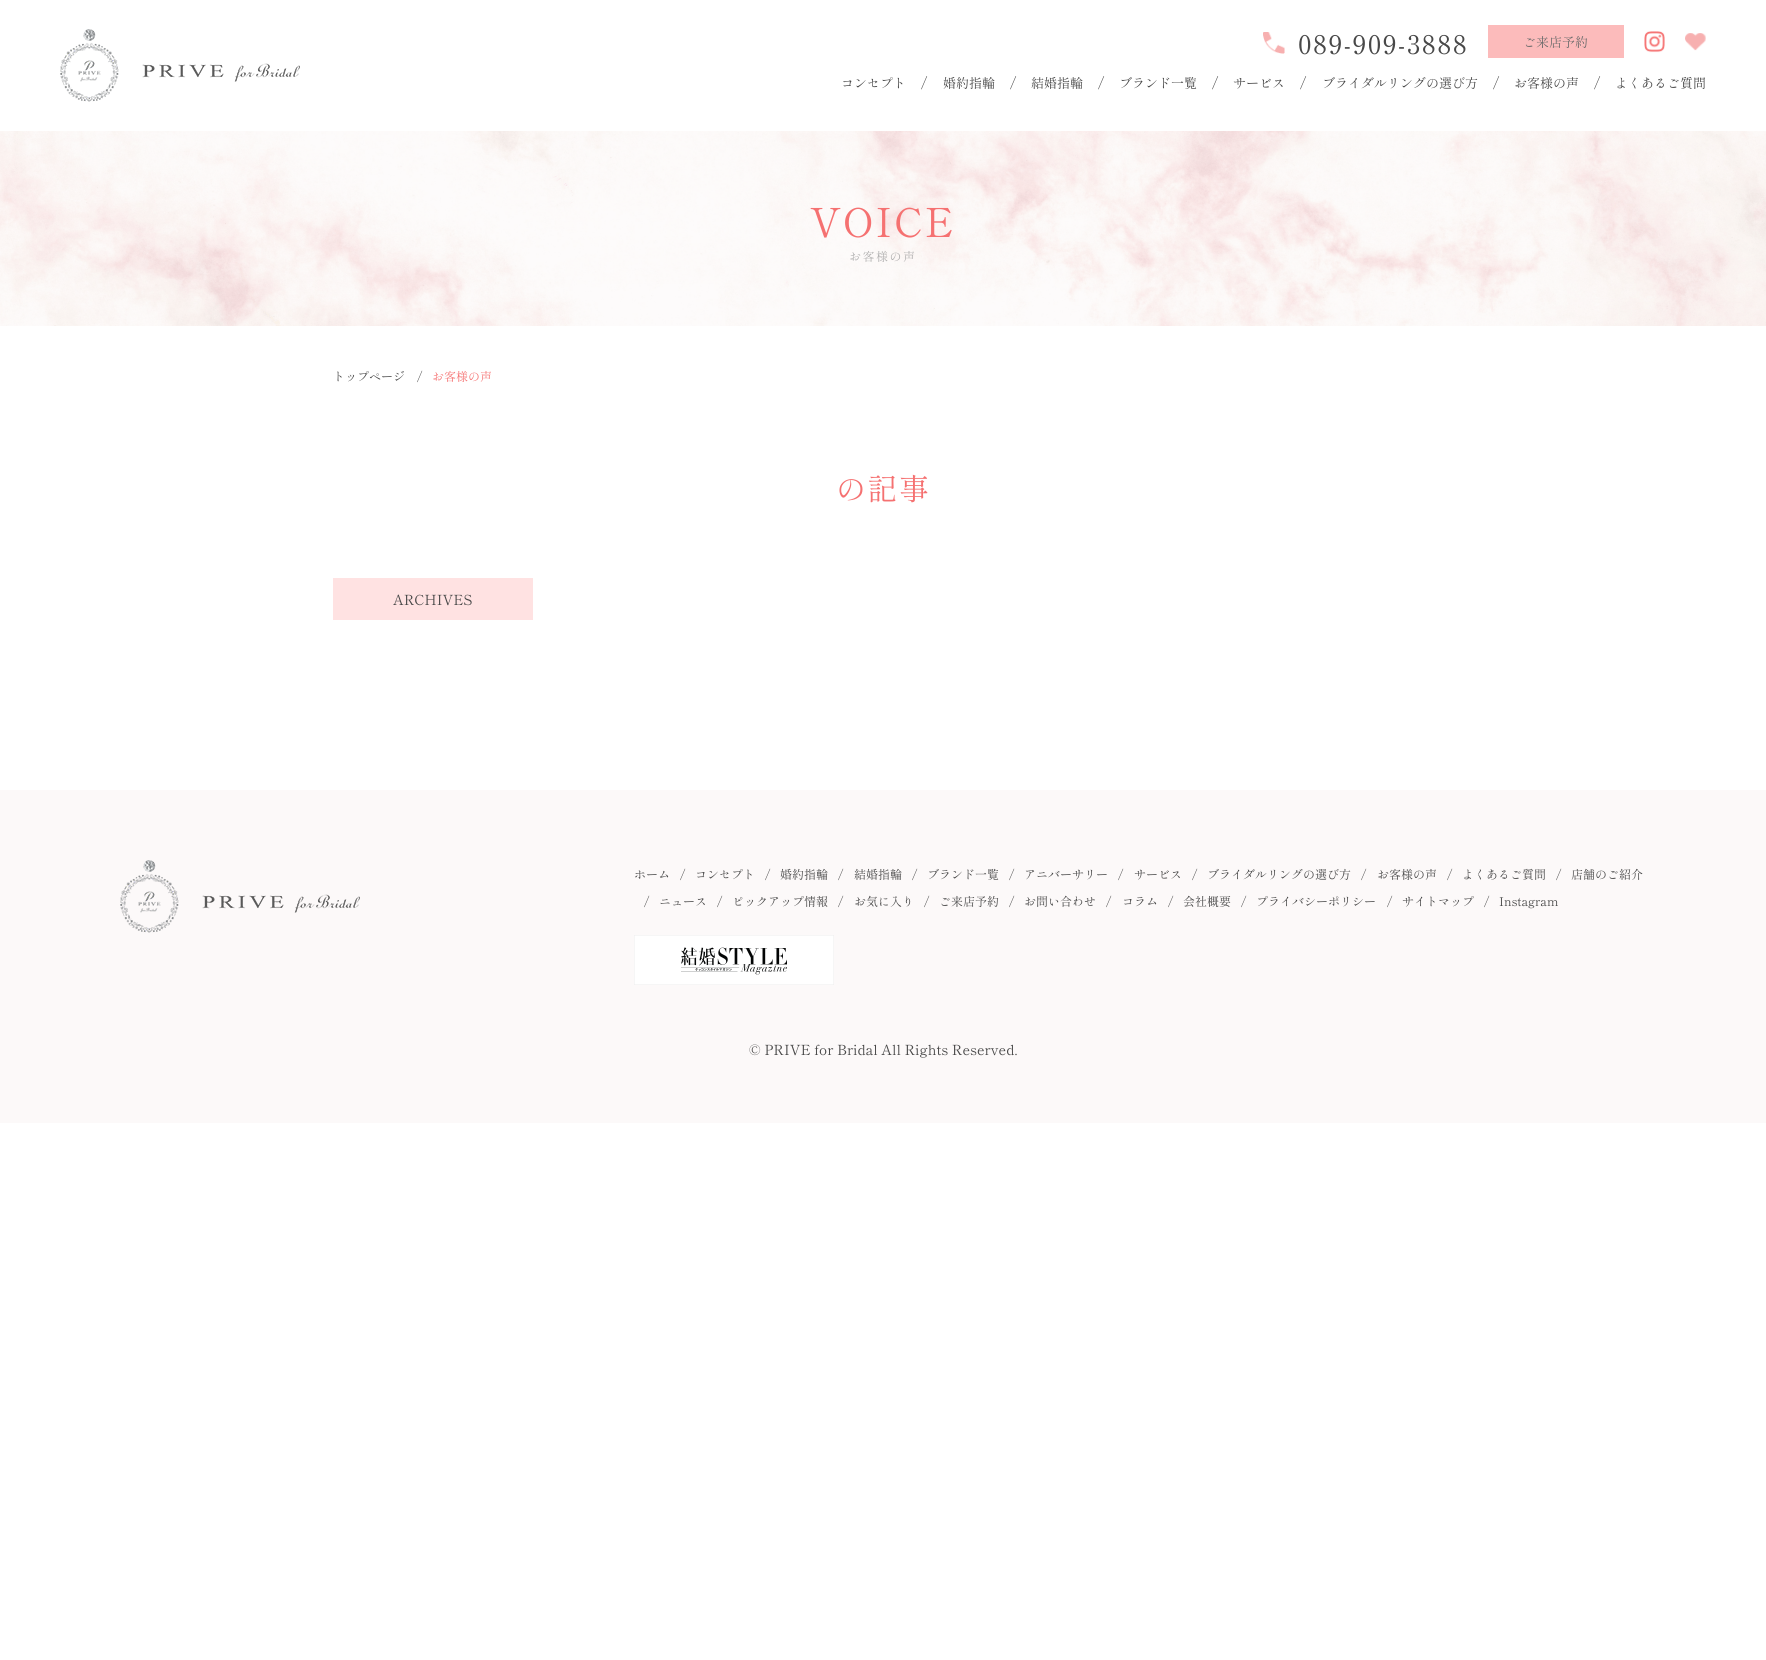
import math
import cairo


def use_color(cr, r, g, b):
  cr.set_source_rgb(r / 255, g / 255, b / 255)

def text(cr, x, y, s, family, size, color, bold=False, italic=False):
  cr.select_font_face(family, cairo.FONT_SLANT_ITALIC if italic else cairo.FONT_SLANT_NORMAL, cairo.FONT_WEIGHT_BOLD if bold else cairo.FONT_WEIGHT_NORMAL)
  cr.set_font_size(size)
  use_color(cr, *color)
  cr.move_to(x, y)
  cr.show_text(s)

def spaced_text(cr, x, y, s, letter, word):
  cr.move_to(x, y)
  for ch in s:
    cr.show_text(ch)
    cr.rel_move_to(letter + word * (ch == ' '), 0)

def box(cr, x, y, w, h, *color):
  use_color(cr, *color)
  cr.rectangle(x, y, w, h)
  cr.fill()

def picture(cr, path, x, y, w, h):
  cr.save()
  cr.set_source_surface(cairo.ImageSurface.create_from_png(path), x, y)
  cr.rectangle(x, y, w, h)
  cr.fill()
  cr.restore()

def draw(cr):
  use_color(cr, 255, 255, 255)
  cr.paint()
  picture(cr, "img_01.png", 60, 29, 240, 73)
  picture(cr, "img_02.png", 1263, 32, 22, 22)
  box(cr, 1488, 25, 136, 33, 252, 187, 187)
  picture(cr, "img_03.png", 1644, 31, 21, 22)
  picture(cr, "img_04.png", 1685, 33, 21, 18)
  box(cr, 0, 131, 1766, 195, 252, 249, 249)
  picture(cr, "img_05.png", 0, 131, 1766, 195)
  box(cr, 333, 578, 200, 42, 255, 226, 226)
  box(cr, 0, 790, 1766, 333, 252, 249, 249)
  picture(cr, "img_06.png", 120, 860, 240, 73)
  picture(cr, "img_07.png", 634, 935, 200, 50)
  cr.select_font_face("Shippori Mincho")
  cr.set_font_size(26)
  use_color(cr, 72, 72, 72)
  spaced_text(cr, 1298, 54, "089-909-3888", 1.5, 0)
  text(cr, 1523, 47, "ご来店予約", "Shippori Mincho", 13, (106, 106, 106))
  text(cr, 841, 88, "コンセプト", "Shippori Mincho", 13, (72, 72, 72))
  text(cr, 921, 88, "/", "Shippori Mincho", 14, (72, 72, 72))
  text(cr, 943, 88, "婚約指輪", "Shippori Mincho", 13, (72, 72, 72))
  text(cr, 1010, 88, "/", "Shippori Mincho", 14, (72, 72, 72))
  text(cr, 1031, 88, "結婚指輪", "Shippori Mincho", 13, (72, 72, 72))
  text(cr, 1098, 88, "/", "Shippori Mincho", 14, (72, 72, 72))
  text(cr, 1119, 88, "ブランド一覧", "Shippori Mincho", 13, (72, 72, 72))
  text(cr, 1212, 88, "/", "Shippori Mincho", 14, (72, 72, 72))
  text(cr, 1233, 88, "サービス", "Shippori Mincho", 13, (72, 72, 72))
  text(cr, 1300, 88, "/", "Shippori Mincho", 14, (72, 72, 72))
  text(cr, 1322, 88, "ブライダルリングの選び方", "Shippori Mincho", 13, (72, 72, 72))
  text(cr, 1493, 88, "/", "Shippori Mincho", 14, (72, 72, 72))
  text(cr, 1514, 88, "お客様の声", "Shippori Mincho", 13, (72, 72, 72))
  text(cr, 1594, 88, "/", "Shippori Mincho", 14, (72, 72, 72))
  text(cr, 1615, 88, "よくあるご質問", "Shippori Mincho", 13, (72, 72, 72))
  cr.set_font_size(40)
  use_color(cr, 245, 113, 113)
  spaced_text(cr, 810, 237, "VOICE", 2, 0)
  cr.set_font_size(12)
  use_color(cr, 175, 174, 174)
  spaced_text(cr, 849, 261, "お客様の声", 1.5, 0)
  text(cr, 333, 381, "トップページ", "Shippori Mincho", 12, (72, 72, 72))
  text(cr, 417, 381, "/", "Shippori Mincho", 12, (72, 72, 72))
  text(cr, 432, 381, "お客様の声", "Shippori Mincho", 12, (245, 113, 113))
  cr.set_font_size(30)
  spaced_text(cr, 836, 500, "の記事", 1.5, 0)
  text(cr, 393, 605, "ARCHIVES", "Shippori Mincho", 14, (72, 72, 72))
  text(cr, 634, 879, "ホーム", "Shippori Mincho", 12, (72, 72, 72))
  text(cr, 680, 879, "/", "Shippori Mincho", 12, (72, 72, 72))
  text(cr, 695, 879, "コンセプト", "Shippori Mincho", 12, (72, 72, 72))
  text(cr, 765, 879, "/", "Shippori Mincho", 12, (72, 72, 72))
  text(cr, 780, 879, "婚約指輪", "Shippori Mincho", 12, (72, 72, 72))
  text(cr, 838, 879, "/", "Shippori Mincho", 12, (72, 72, 72))
  text(cr, 854, 879, "結婚指輪", "Shippori Mincho", 12, (72, 72, 72))
  text(cr, 912, 879, "/", "Shippori Mincho", 12, (72, 72, 72))
  text(cr, 927, 879, "ブランド一覧", "Shippori Mincho", 12, (72, 72, 72))
  text(cr, 1009, 879, "/", "Shippori Mincho", 12, (72, 72, 72))
  text(cr, 1024, 879, "アニバーサリー", "Shippori Mincho", 12, (72, 72, 72))
  text(cr, 1118, 879, "/", "Shippori Mincho", 12, (72, 72, 72))
  text(cr, 1134, 879, "サービス", "Shippori Mincho", 12, (72, 72, 72))
  text(cr, 1192, 879, "/", "Shippori Mincho", 12, (72, 72, 72))
  text(cr, 1207, 879, "ブライダルリングの選び方", "Shippori Mincho", 12, (72, 72, 72))
  text(cr, 1361, 879, "/", "Shippori Mincho", 12, (72, 72, 72))
  text(cr, 1377, 879, "お客様の声", "Shippori Mincho", 12, (72, 72, 72))
  text(cr, 1447, 879, "/", "Shippori Mincho", 12, (72, 72, 72))
  text(cr, 1462, 879, "よくあるご質問", "Shippori Mincho", 12, (72, 72, 72))
  text(cr, 1556, 879, "/", "Shippori Mincho", 12, (72, 72, 72))
  text(cr, 1571, 879, "店舗のご紹介", "Shippori Mincho", 12, (72, 72, 72))
  text(cr, 644, 906, "/", "Shippori Mincho", 12, (72, 72, 72))
  text(cr, 659, 906, "ニュース", "Shippori Mincho", 12, (72, 72, 72))
  text(cr, 717, 906, "/", "Shippori Mincho", 12, (72, 72, 72))
  text(cr, 732, 906, "ピックアップ情報", "Shippori Mincho", 12, (72, 72, 72))
  text(cr, 838, 906, "/", "Shippori Mincho", 12, (72, 72, 72))
  text(cr, 854, 906, "お気に入り", "Shippori Mincho", 12, (72, 72, 72))
  text(cr, 924, 906, "/", "Shippori Mincho", 12, (72, 72, 72))
  text(cr, 939, 906, "ご来店予約", "Shippori Mincho", 12, (72, 72, 72))
  text(cr, 1009, 906, "/", "Shippori Mincho", 12, (72, 72, 72))
  text(cr, 1024, 906, "お問い合わせ", "Shippori Mincho", 12, (72, 72, 72))
  text(cr, 1106, 906, "/", "Shippori Mincho", 12, (72, 72, 72))
  text(cr, 1122, 906, "コラム", "Shippori Mincho", 12, (72, 72, 72))
  text(cr, 1168, 906, "/", "Shippori Mincho", 12, (72, 72, 72))
  text(cr, 1183, 906, "会社概要", "Shippori Mincho", 12, (72, 72, 72))
  text(cr, 1241, 906, "/", "Shippori Mincho", 12, (72, 72, 72))
  text(cr, 1256, 906, "プライバシーポリシー", "Shippori Mincho", 12, (72, 72, 72))
  text(cr, 1387, 906, "/", "Shippori Mincho", 12, (72, 72, 72))
  text(cr, 1402, 906, "サイトマップ", "Shippori Mincho", 12, (72, 72, 72))
  text(cr, 1484, 906, "/", "Shippori Mincho", 12, (72, 72, 72))
  text(cr, 1499, 906, "Instagram", "Shippori Mincho", 12, (72, 72, 72))
  text(cr, 749, 1055, "© PRIVE for Bridal All Rights Reserved.", "Shippori Mincho", 14, (72, 72, 72))


surface = cairo.ImageSurface(cairo.FORMAT_RGB24, 1766, 1660)
cr = cairo.Context(surface)
options = cairo.FontOptions()
options.set_hint_metrics(cairo.HINT_METRICS_OFF)
options.set_hint_style(cairo.HINT_STYLE_NONE)
cr.set_font_options(options)
cr.set_miter_limit(4)
draw(cr)
surface.write_to_png("out.png")
